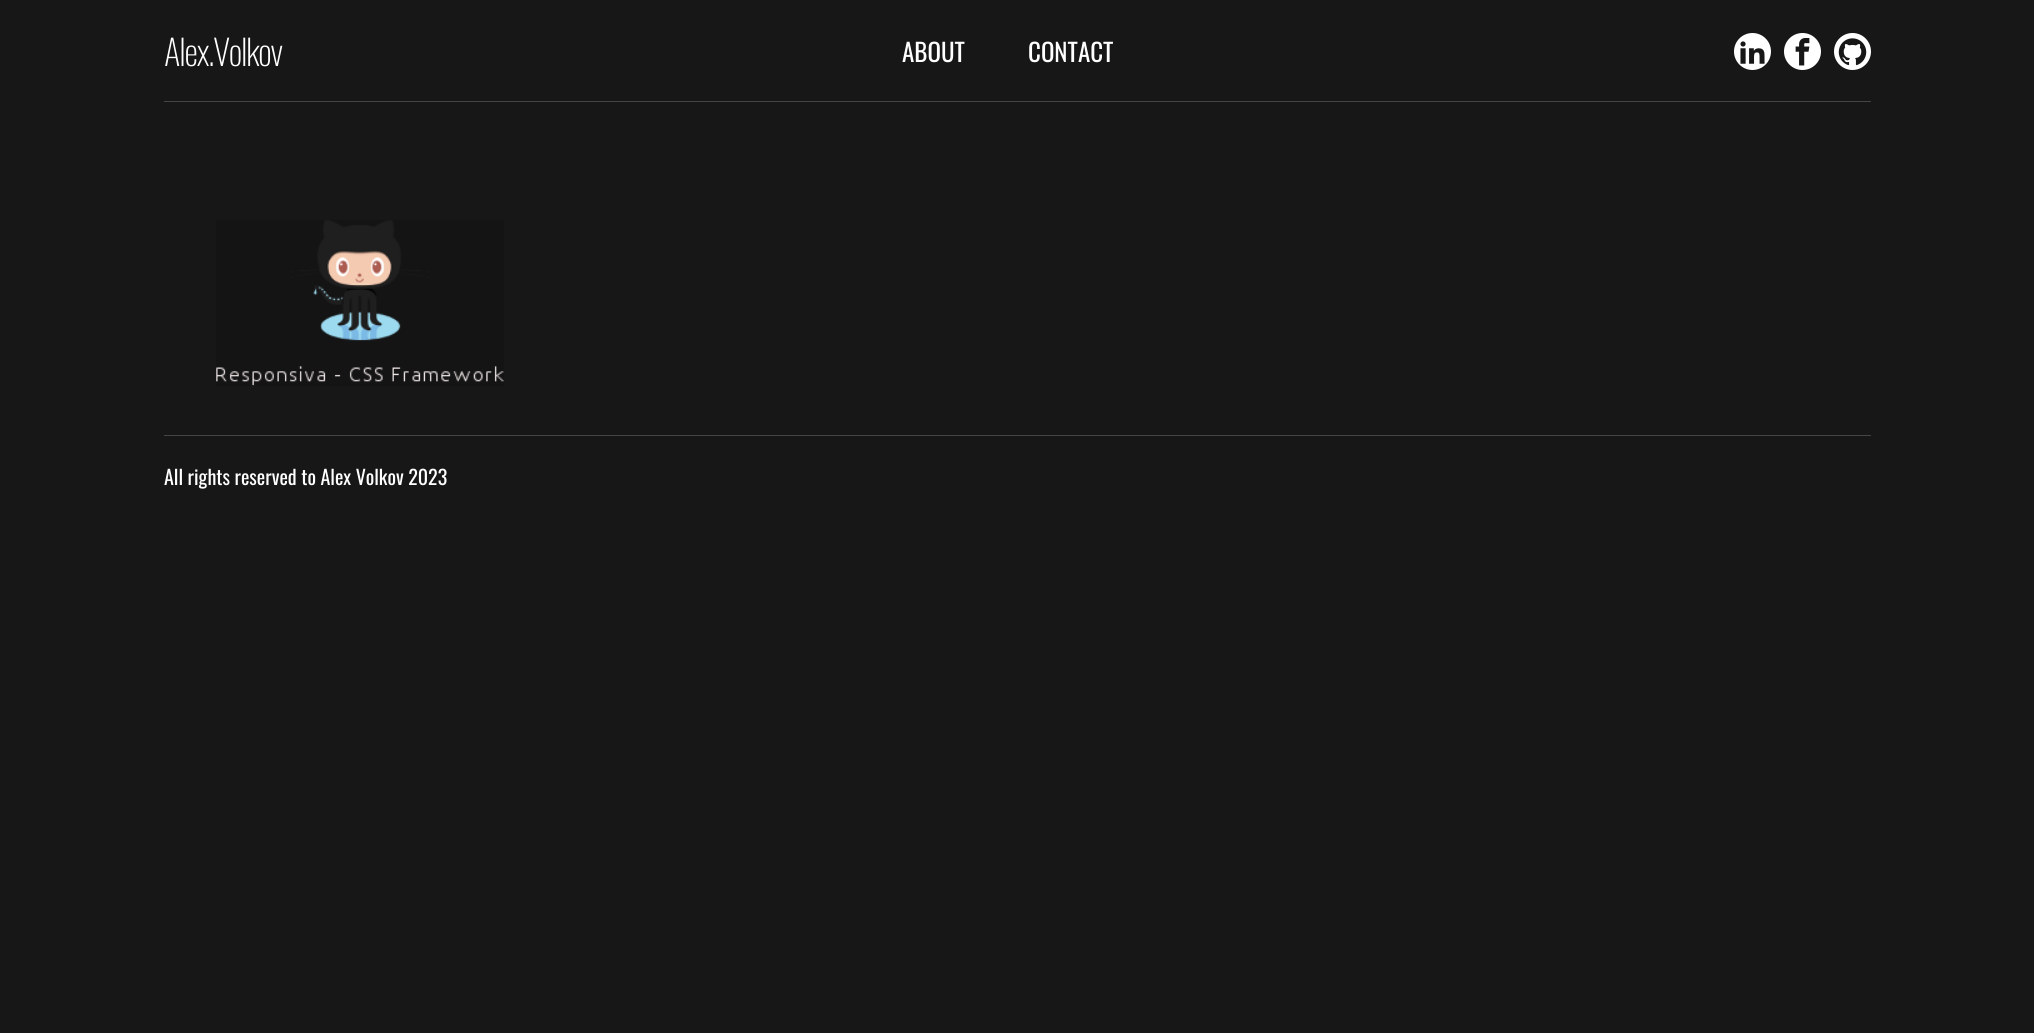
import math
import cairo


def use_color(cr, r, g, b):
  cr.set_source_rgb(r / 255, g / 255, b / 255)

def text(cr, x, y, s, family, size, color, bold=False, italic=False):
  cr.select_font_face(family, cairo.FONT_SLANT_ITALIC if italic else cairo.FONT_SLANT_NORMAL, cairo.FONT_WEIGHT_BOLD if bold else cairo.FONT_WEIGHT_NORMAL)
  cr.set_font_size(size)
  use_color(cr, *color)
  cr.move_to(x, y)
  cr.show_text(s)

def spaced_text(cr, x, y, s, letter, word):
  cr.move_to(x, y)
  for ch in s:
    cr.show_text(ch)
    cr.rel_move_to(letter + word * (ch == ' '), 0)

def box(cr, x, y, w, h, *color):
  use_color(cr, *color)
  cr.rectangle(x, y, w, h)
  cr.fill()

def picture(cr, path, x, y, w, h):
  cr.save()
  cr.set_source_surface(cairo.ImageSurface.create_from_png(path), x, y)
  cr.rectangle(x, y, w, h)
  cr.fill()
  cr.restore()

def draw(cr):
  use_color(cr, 23, 23, 23)
  cr.paint()
  box(cr, 164, 101, 1707, 1, 69, 69, 69)
  use_color(cr, 255, 255, 255)
  cr.arc(1752.5, 51.5, 18.5, 0, 2 * math.pi)
  cr.fill()
  picture(cr, "img_01.png", 1740, 41, 25, 23)
  cr.arc(1802.5, 51.5, 18.5, 0, 2 * math.pi)
  cr.fill()
  picture(cr, "img_02.png", 1795, 38, 15, 28)
  cr.arc(1852.5, 51.5, 18.5, 0, 2 * math.pi)
  cr.fill()
  picture(cr, "img_03.png", 1838, 38, 29, 28)
  picture(cr, "img_04.png", 216, 220, 288, 166)
  box(cr, 164, 435, 1707, 1, 69, 69, 69)
  cr.select_font_face("Oswald ExtraLight")
  cr.set_font_size(35)
  use_color(cr, 255, 255, 255)
  spaced_text(cr, 164, 66, "Alex.Volkov", -1.25, 0)
  text(cr, 902, 62, "ABOUT", "Oswald", 25, (255, 255, 255))
  text(cr, 1028, 62, "CONTACT", "Oswald", 25, (255, 255, 255))
  text(cr, 164, 485, "All rights reserved to Alex Volkov 2023", "Oswald", 20, (255, 255, 255))


surface = cairo.ImageSurface(cairo.FORMAT_RGB24, 2034, 1033)
cr = cairo.Context(surface)
options = cairo.FontOptions()
options.set_hint_metrics(cairo.HINT_METRICS_OFF)
options.set_hint_style(cairo.HINT_STYLE_NONE)
cr.set_font_options(options)
cr.set_miter_limit(4)
draw(cr)
surface.write_to_png("out.png")
